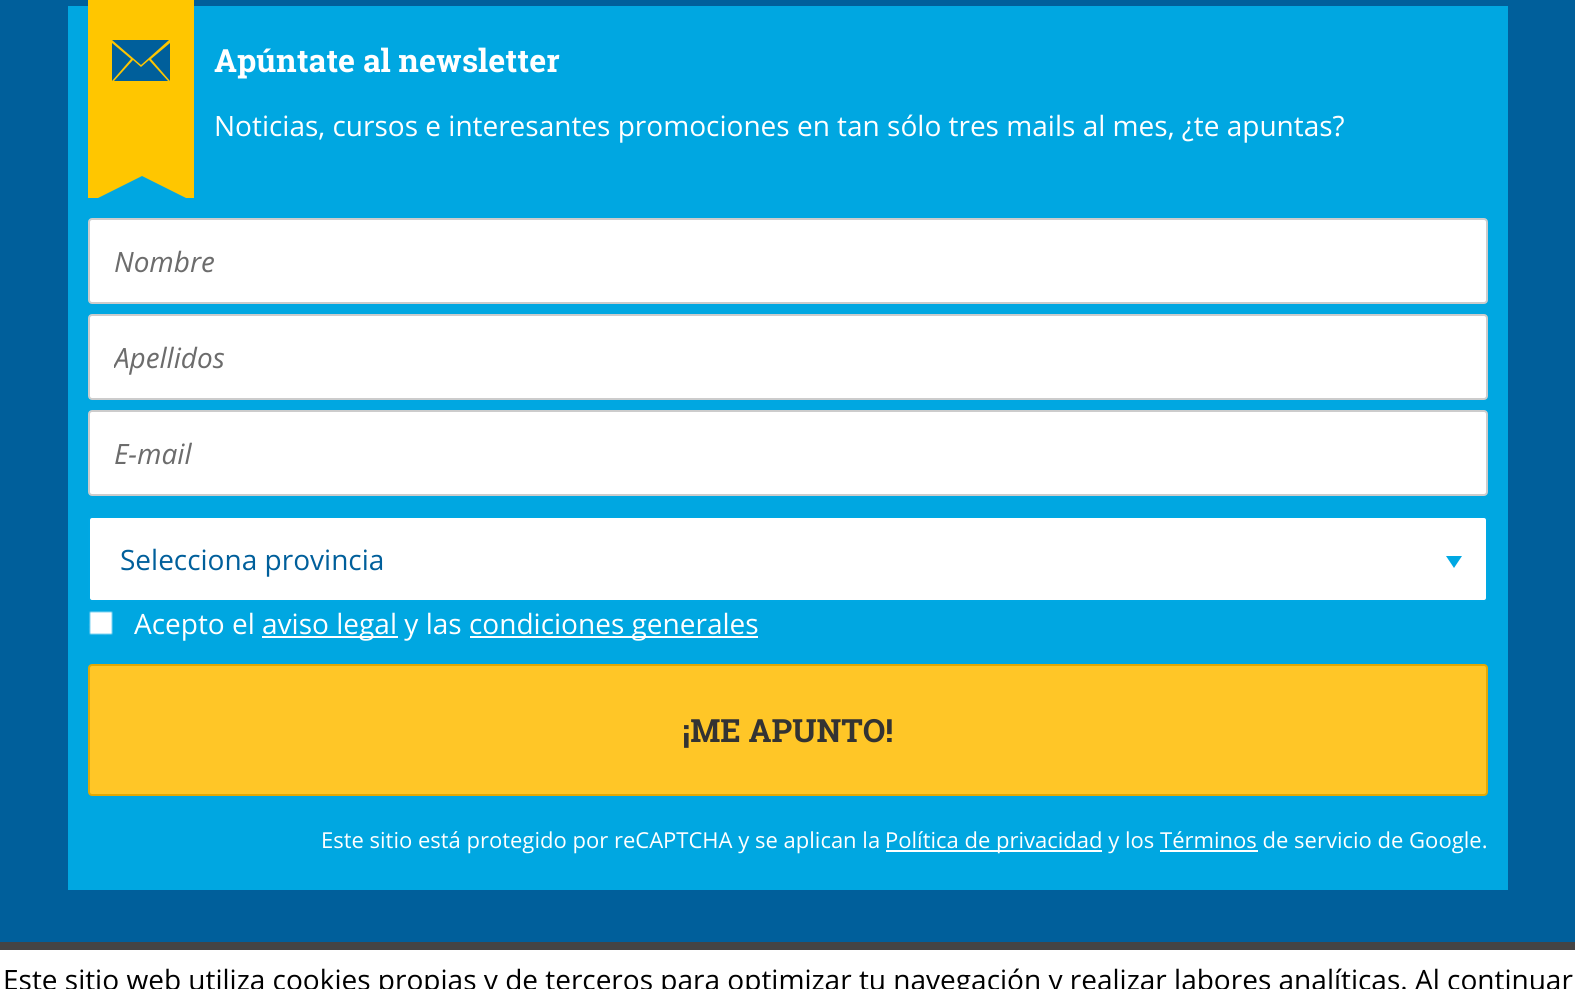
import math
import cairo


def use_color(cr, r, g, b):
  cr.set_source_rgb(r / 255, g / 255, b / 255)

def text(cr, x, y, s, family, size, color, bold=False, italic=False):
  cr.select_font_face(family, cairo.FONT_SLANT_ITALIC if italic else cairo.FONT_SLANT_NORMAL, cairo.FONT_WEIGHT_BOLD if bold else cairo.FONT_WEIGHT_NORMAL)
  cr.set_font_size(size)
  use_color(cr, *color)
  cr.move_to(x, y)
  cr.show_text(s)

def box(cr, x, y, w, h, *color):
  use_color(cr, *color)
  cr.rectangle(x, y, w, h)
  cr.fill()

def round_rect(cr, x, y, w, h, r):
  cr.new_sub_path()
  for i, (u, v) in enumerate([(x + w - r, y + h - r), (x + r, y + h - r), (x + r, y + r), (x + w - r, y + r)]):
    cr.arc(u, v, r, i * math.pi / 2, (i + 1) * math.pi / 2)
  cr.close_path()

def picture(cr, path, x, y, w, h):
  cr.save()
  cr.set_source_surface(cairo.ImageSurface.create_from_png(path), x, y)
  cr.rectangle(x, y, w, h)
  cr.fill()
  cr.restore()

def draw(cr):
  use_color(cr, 0, 95, 155)
  cr.paint()
  box(cr, 68, 6, 1440, 884, 0, 167, 225)
  box(cr, 88, 0, 106, 198, 255, 198, 0)
  use_color(cr, 0, 95, 155)
  cr.new_path()
  cr.move_to(141, 67)
  cr.line_to(149, 60)
  cr.line_to(168, 81)
  cr.line_to(114, 81)
  cr.line_to(133, 60)
  cr.close_path()
  cr.move_to(151, 59)
  cr.line_to(170, 43)
  cr.line_to(170, 81)
  cr.close_path()
  cr.move_to(169, 40)
  cr.line_to(141, 65)
  cr.line_to(112, 40)
  cr.close_path()
  cr.move_to(112, 43)
  cr.line_to(131, 59)
  cr.line_to(112, 81)
  cr.close_path()
  cr.fill()
  use_color(cr, 0, 167, 225)
  cr.new_path()
  cr.move_to(186, 198)
  cr.line_to(98, 198)
  cr.line_to(142, 176)
  cr.close_path()
  cr.fill()
  use_color(cr, 255, 255, 255)
  round_rect(cr, 89, 219, 1398, 84, 3)
  cr.fill_preserve()
  use_color(cr, 204, 204, 204)
  cr.stroke()
  use_color(cr, 255, 255, 255)
  round_rect(cr, 89, 315, 1398, 84, 3)
  cr.fill_preserve()
  use_color(cr, 204, 204, 204)
  cr.stroke()
  use_color(cr, 255, 255, 255)
  round_rect(cr, 89, 411, 1398, 84, 3)
  cr.fill_preserve()
  use_color(cr, 204, 204, 204)
  cr.stroke()
  use_color(cr, 255, 255, 255)
  round_rect(cr, 89, 517, 1398, 84, 3)
  cr.fill_preserve()
  use_color(cr, 0, 168, 227)
  cr.stroke()
  cr.new_path()
  cr.move_to(1446, 556)
  cr.line_to(1462, 556)
  cr.line_to(1454, 568)
  cr.close_path()
  cr.fill()
  picture(cr, "img_01.png", 88, 611, 25, 25)
  box(cr, 262, 636, 136, 2, 255, 255, 255)
  box(cr, 470, 636, 288, 2, 255, 255, 255)
  use_color(cr, 255, 198, 39)
  round_rect(cr, 89, 665, 1398, 130, 3)
  cr.fill_preserve()
  use_color(cr, 226, 168, 4)
  cr.stroke()
  box(cr, 886, 850, 216, 2, 255, 255, 255)
  box(cr, 1160, 850, 98, 2, 255, 255, 255)
  box(cr, 0, 950, 1575, 39, 255, 255, 255)
  box(cr, 0, 942, 1575, 8, 68, 68, 68)
  text(cr, 214, 72, "Apúntate al newsletter", "Roboto Slab", 32, (255, 255, 255), bold=True)
  text(cr, 214, 136, "Noticias, cursos e interesantes promociones en tan sólo tres mails al mes, ¿te apuntas?", "Open Sans", 28, (255, 255, 255))
  text(cr, 114, 272, "Nombre", "Open Sans", 28, (108, 108, 108), italic=True)
  cr.save()
  cr.rectangle(114, 338, 1348, 38)
  cr.clip()
  text(cr, 114, 368, "Apellidos", "Open Sans", 28, (108, 108, 108), italic=True)
  cr.restore()
  text(cr, 114, 464, "E-mail", "Open Sans", 28, (108, 108, 108), italic=True)
  text(cr, 120, 570, "Selecciona provincia", "Open Sans", 28, (0, 95, 155))
  text(cr, 134, 634, "Acepto el", "Open Sans", 28, (255, 255, 255))
  text(cr, 262, 634, "aviso legal y las", "Open Sans", 28, (255, 255, 255))
  text(cr, 469, 634, "condiciones generales", "Open Sans", 28, (255, 255, 255))
  text(cr, 682, 742, "¡ME APUNTO!", "Roboto Slab", 32, (51, 51, 51), bold=True)
  text(cr, 321, 848, "Este sitio está protegido por reCAPTCHA y se aplican la", "Open Sans", 22, (255, 255, 255))
  text(cr, 885, 848, "Política de privacidad y los Términos de servicio de Google.", "Open Sans", 22, (255, 255, 255))
  text(cr, 3, 990, "Este sitio web utiliza cookies propias y de terceros para optimizar tu navegación y realizar labores analíticas. Al continuar", "Open Sans", 28, (0, 0, 0))


surface = cairo.ImageSurface(cairo.FORMAT_RGB24, 1575, 989)
cr = cairo.Context(surface)
options = cairo.FontOptions()
options.set_hint_metrics(cairo.HINT_METRICS_OFF)
options.set_hint_style(cairo.HINT_STYLE_NONE)
cr.set_font_options(options)
cr.set_miter_limit(4)
draw(cr)
surface.write_to_png("out.png")
